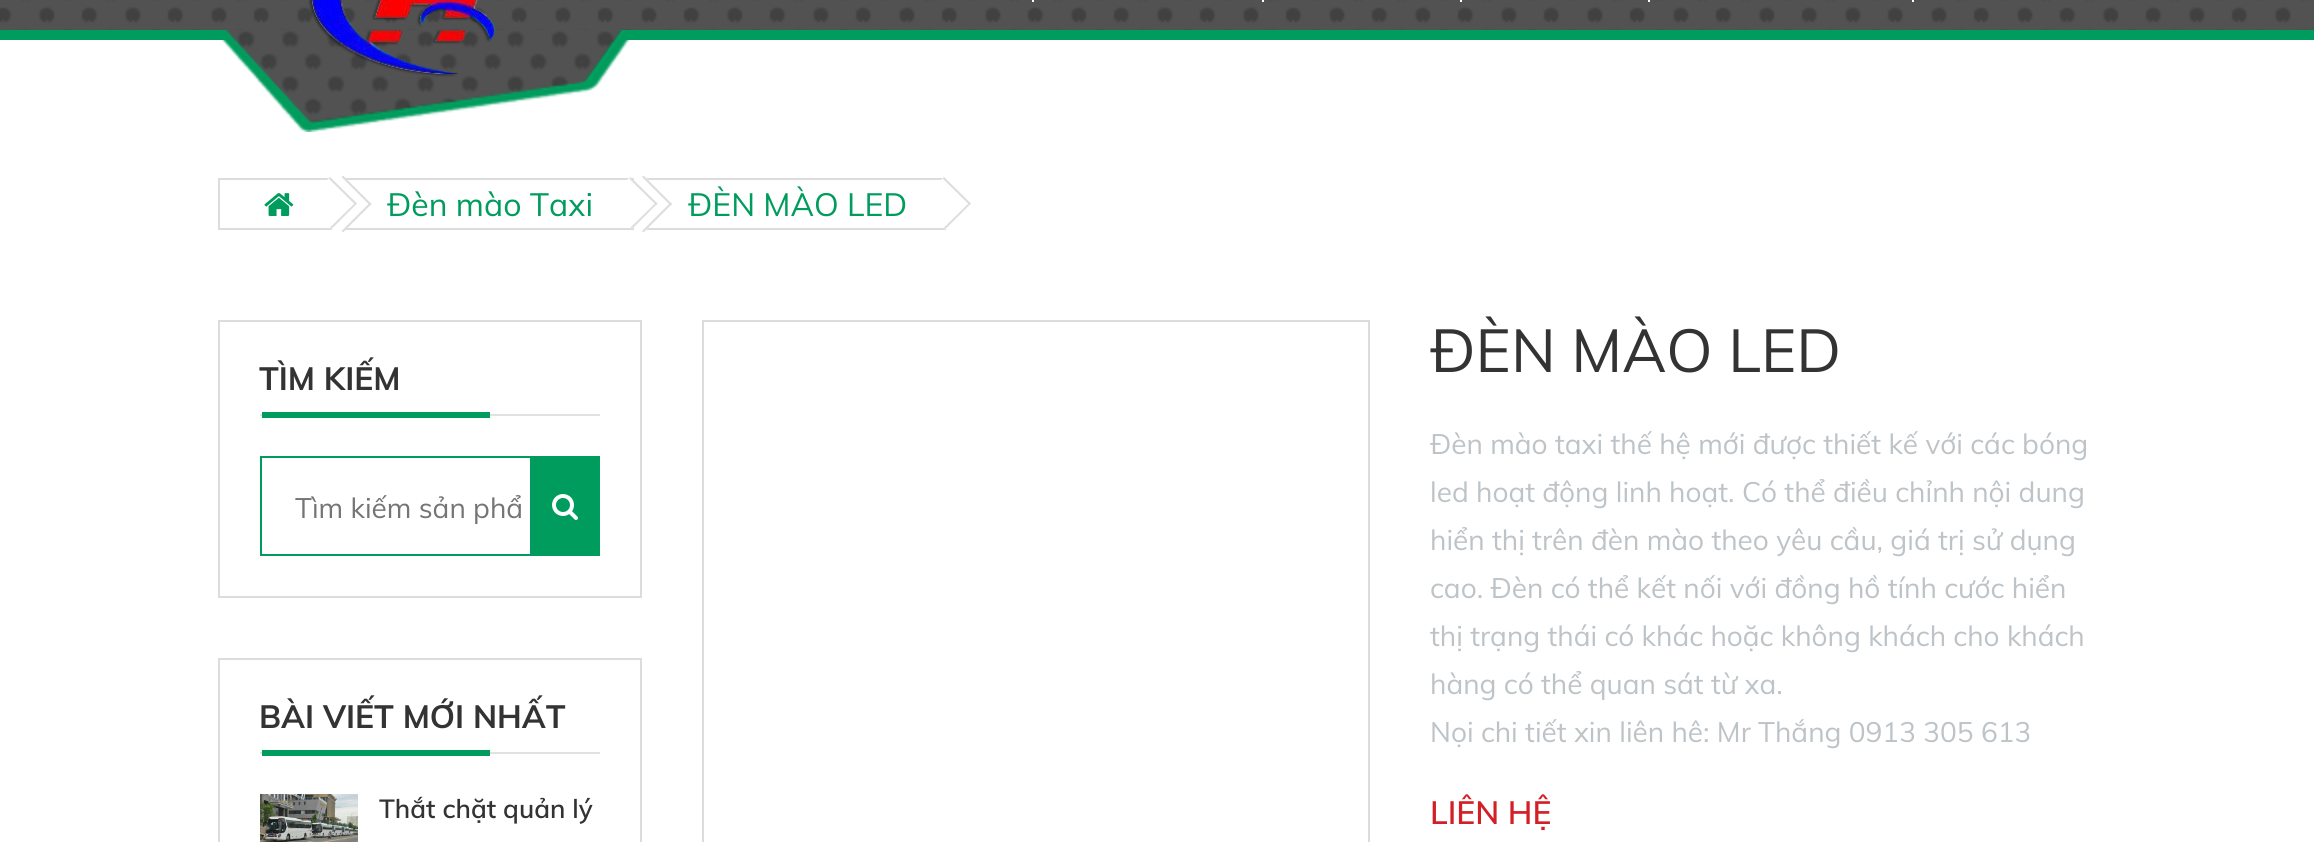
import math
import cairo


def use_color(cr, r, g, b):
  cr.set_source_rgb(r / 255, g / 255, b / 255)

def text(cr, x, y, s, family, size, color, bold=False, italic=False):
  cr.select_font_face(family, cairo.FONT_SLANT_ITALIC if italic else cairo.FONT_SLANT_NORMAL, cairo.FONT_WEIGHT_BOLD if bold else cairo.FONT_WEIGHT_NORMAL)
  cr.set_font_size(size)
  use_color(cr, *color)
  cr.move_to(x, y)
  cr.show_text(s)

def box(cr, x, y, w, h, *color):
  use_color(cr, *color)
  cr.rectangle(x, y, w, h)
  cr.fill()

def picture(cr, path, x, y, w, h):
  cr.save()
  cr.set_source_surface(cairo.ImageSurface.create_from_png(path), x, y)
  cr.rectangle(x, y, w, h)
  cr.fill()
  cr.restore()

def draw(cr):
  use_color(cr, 255, 255, 255)
  cr.paint()
  box(cr, 0, 0, 2314, 30, 82, 82, 82)
  picture(cr, "img_01.png", 0, 0, 2311, 30)
  box(cr, 0, 30, 2314, 10, 0, 156, 93)
  picture(cr, "img_03.png", 221, 30, 410, 102)
  picture(cr, "img_02.png", 308, 0, 187, 77)
  box(cr, 1032, 0, 2, 2, 255, 255, 255)
  box(cr, 1262, 0, 2, 2, 255, 255, 255)
  box(cr, 1460, 0, 2, 2, 255, 255, 255)
  box(cr, 1648, 0, 2, 2, 255, 255, 255)
  box(cr, 1912, 0, 2, 2, 255, 255, 255)
  box(cr, 218, 178, 114, 2, 221, 219, 222)
  box(cr, 218, 228, 114, 2, 221, 219, 222)
  box(cr, 218, 178, 2, 52, 221, 219, 222)
  picture(cr, "img_04.png", 264, 193, 30, 23)
  box(cr, 342, 178, 292, 2, 221, 219, 222)
  box(cr, 342, 228, 292, 2, 221, 219, 222)
  use_color(cr, 255, 255, 255)
  cr.new_path()
  cr.move_to(315, 204)
  cr.line_to(343, 176)
  cr.line_to(371, 204)
  cr.line_to(343, 232)
  cr.close_path()
  cr.fill()
  use_color(cr, 221, 221, 221)
  cr.new_path()
  cr.move_to(341.5, 177)
  cr.line_to(343, 175.5)
  cr.line_to(371.5, 204)
  cr.line_to(370, 205.5)
  cr.close_path()
  cr.fill()
  cr.new_path()
  cr.move_to(341.5, 231)
  cr.line_to(370, 202.5)
  cr.line_to(371.5, 204)
  cr.line_to(343, 232.5)
  cr.close_path()
  cr.fill()
  use_color(cr, 255, 255, 255)
  cr.new_path()
  cr.move_to(305, 202)
  cr.line_to(330, 177)
  cr.line_to(357, 204)
  cr.line_to(331, 229)
  cr.close_path()
  cr.fill()
  use_color(cr, 221, 221, 221)
  cr.new_path()
  cr.move_to(328.5, 178.5)
  cr.line_to(330, 177)
  cr.line_to(357, 203.5)
  cr.line_to(355.5, 205)
  cr.close_path()
  cr.fill()
  cr.new_path()
  cr.move_to(330, 227.5)
  cr.line_to(355.5, 202.5)
  cr.line_to(357, 203.5)
  cr.line_to(331.5, 229)
  cr.close_path()
  cr.fill()
  box(cr, 642, 178, 304, 2, 221, 219, 222)
  box(cr, 642, 228, 304, 2, 221, 219, 222)
  use_color(cr, 255, 255, 255)
  cr.new_path()
  cr.move_to(615, 204)
  cr.line_to(644, 176)
  cr.line_to(672, 204)
  cr.line_to(644, 232)
  cr.close_path()
  cr.fill()
  use_color(cr, 221, 221, 221)
  cr.new_path()
  cr.move_to(642, 177)
  cr.line_to(643.5, 175.5)
  cr.line_to(672, 204)
  cr.line_to(670.5, 205.5)
  cr.close_path()
  cr.fill()
  cr.new_path()
  cr.move_to(642, 231)
  cr.line_to(670.5, 202.5)
  cr.line_to(672, 204)
  cr.line_to(643.5, 232.5)
  cr.close_path()
  cr.fill()
  use_color(cr, 255, 255, 255)
  cr.new_path()
  cr.move_to(605, 202)
  cr.line_to(630, 177)
  cr.line_to(657, 204)
  cr.line_to(632, 229)
  cr.close_path()
  cr.fill()
  use_color(cr, 221, 221, 221)
  cr.new_path()
  cr.move_to(629, 178.5)
  cr.line_to(630.5, 177)
  cr.line_to(657.5, 203.5)
  cr.line_to(656, 205)
  cr.close_path()
  cr.fill()
  cr.new_path()
  cr.move_to(630.5, 227.5)
  cr.line_to(656, 202.5)
  cr.line_to(657.5, 203.5)
  cr.line_to(632, 229)
  cr.close_path()
  cr.fill()
  use_color(cr, 255, 255, 255)
  cr.new_path()
  cr.move_to(919, 202)
  cr.line_to(944, 177)
  cr.line_to(971, 204)
  cr.line_to(945, 229)
  cr.close_path()
  cr.fill()
  use_color(cr, 221, 221, 221)
  cr.new_path()
  cr.move_to(942.5, 178.5)
  cr.line_to(944, 177)
  cr.line_to(971, 203.5)
  cr.line_to(969.5, 205)
  cr.close_path()
  cr.fill()
  cr.new_path()
  cr.move_to(944, 227.5)
  cr.line_to(969.5, 202.5)
  cr.line_to(971, 203.5)
  cr.line_to(945.5, 229)
  cr.close_path()
  cr.fill()
  cr.rectangle(219, 321, 422, 276)
  use_color(cr, 220, 220, 220)
  cr.stroke()
  box(cr, 260, 414, 340, 2, 225, 225, 225)
  box(cr, 262, 412, 228, 6, 0, 156, 93)
  cr.rectangle(261, 457, 338, 98)
  cr.stroke()
  box(cr, 530, 458, 68, 96, 0, 156, 93)
  picture(cr, "img_05.png", 552, 494, 26, 26)
  cr.rectangle(219, 659, 422, 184)
  use_color(cr, 220, 220, 220)
  cr.stroke()
  box(cr, 260, 752, 340, 2, 225, 225, 225)
  box(cr, 262, 750, 228, 6, 0, 156, 93)
  picture(cr, "img_06.png", 260, 794, 98, 48)
  cr.rectangle(703, 321, 666, 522)
  use_color(cr, 220, 220, 220)
  cr.stroke()
  text(cr, 387, 216, "Đèn mào Taxi", "Muli", 32, (0, 156, 93))
  text(cr, 688, 216, "ĐÈN MÀO LED", "Muli", 32, (0, 156, 93))
  text(cr, 259, 390, "TÌM KIẾM", "Muli", 32, (51, 51, 51), bold=True)
  text(cr, 295, 518, "Tìm kiếm sản phẩ", "Muli", 28, (117, 117, 117))
  text(cr, 259, 728, "BÀI VIẾT MỚI NHẤT", "Muli", 32, (51, 51, 51), bold=True)
  text(cr, 379, 818, "Thắt chặt quản lý", "Muli SemiBold", 26, (51, 51, 51))
  text(cr, 1430, 372, "ĐÈN MÀO LED", "Muli", 60, (51, 51, 51))
  text(cr, 1430, 454, "Đèn mào taxi thế hệ mới được thiết kế với các bóng", "Muli", 28, (189, 195, 199))
  text(cr, 1430, 502, "led hoạt động linh hoạt. Có thể điều chỉnh nội dung", "Muli", 28, (189, 195, 199))
  text(cr, 1430, 550, "hiển thị trên đèn mào theo yêu cầu, giá trị sử dụng", "Muli", 28, (189, 195, 199))
  text(cr, 1430, 598, "cao. Đèn có thể kết nối với đồng hồ tính cước hiển", "Muli", 28, (189, 195, 199))
  text(cr, 1430, 646, "thị trạng thái có khác hoặc không khách cho khách", "Muli", 28, (189, 195, 199))
  text(cr, 1430, 694, "hàng có thể quan sát từ xa.", "Muli", 28, (189, 195, 199))
  text(cr, 1430, 742, "Nọi chi tiết xin liên hê: Mr Thắng 0913 305 613", "Muli", 28, (189, 195, 199))
  text(cr, 1430, 824, "LIÊN HỆ", "Muli SemiBold", 32, (211, 32, 39))


surface = cairo.ImageSurface(cairo.FORMAT_RGB24, 2314, 842)
cr = cairo.Context(surface)
options = cairo.FontOptions()
options.set_hint_metrics(cairo.HINT_METRICS_OFF)
options.set_hint_style(cairo.HINT_STYLE_NONE)
cr.set_font_options(options)
cr.set_miter_limit(4)
draw(cr)
surface.write_to_png("out.png")
